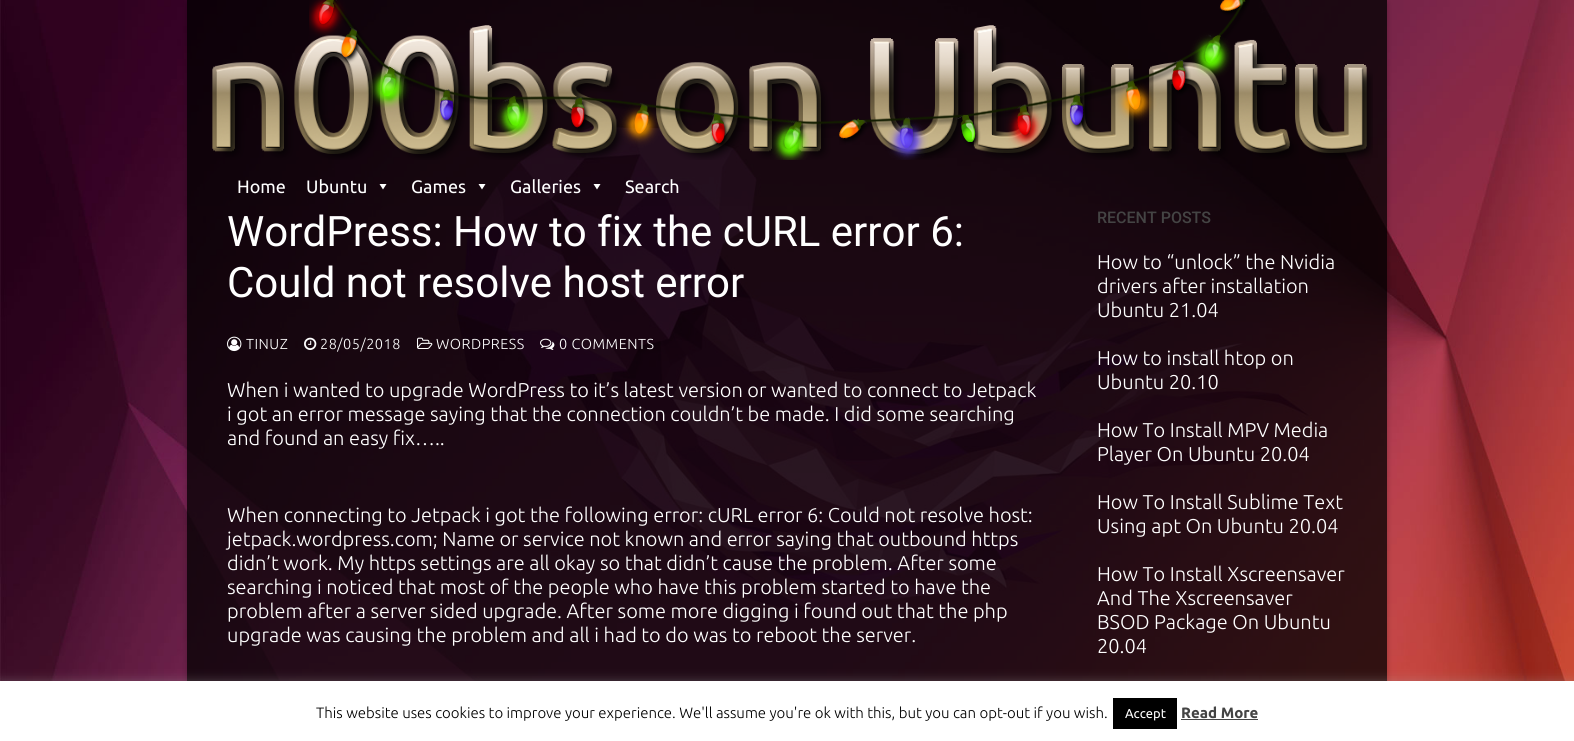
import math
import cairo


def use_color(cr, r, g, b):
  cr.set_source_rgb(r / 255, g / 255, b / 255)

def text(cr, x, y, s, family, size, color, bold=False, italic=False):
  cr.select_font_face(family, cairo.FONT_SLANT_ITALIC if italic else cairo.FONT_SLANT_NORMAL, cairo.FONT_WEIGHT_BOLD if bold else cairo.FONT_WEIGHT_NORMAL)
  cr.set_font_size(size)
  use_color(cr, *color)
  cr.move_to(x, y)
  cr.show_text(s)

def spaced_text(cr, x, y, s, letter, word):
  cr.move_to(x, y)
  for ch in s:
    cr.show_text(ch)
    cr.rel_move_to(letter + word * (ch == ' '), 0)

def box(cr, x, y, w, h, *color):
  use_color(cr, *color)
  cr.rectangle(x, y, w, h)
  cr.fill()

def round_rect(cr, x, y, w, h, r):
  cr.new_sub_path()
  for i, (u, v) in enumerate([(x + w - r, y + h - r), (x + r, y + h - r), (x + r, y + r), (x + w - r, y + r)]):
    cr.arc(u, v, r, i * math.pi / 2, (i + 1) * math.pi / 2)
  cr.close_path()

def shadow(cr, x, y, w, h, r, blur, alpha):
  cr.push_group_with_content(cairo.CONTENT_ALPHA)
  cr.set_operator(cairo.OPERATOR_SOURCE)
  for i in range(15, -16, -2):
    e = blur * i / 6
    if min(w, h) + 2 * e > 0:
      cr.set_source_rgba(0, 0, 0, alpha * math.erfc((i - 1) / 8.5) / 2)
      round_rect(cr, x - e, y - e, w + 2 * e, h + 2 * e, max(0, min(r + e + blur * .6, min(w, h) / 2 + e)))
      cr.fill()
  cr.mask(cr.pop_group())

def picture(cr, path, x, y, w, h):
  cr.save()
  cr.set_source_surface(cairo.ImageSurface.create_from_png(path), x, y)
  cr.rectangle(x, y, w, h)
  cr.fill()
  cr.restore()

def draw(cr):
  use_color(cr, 255, 255, 255)
  cr.paint()
  picture(cr, "img_01.png", 0, 0, 1574, 681)
  cr.save()
  cr.set_fill_rule(cairo.FILL_RULE_EVEN_ODD)
  cr.new_path()
  cr.move_to(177, 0)
  cr.line_to(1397, 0)
  cr.line_to(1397, 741)
  cr.line_to(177, 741)
  cr.close_path()
  cr.move_to(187, 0)
  cr.line_to(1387, 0)
  cr.line_to(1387, 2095)
  cr.line_to(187, 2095)
  cr.close_path()
  cr.clip()
  use_color(cr, 0, 0, 0)
  shadow(cr, 187, 3, 1200, 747, 0, 3, 0.23)
  cr.restore()
  cr.set_source_rgba(0, 0, 0, 0.4)
  cr.rectangle(187, 0, 1200, 206)
  cr.fill()
  cr.set_source_rgba(0, 0, 0, 0.6)
  cr.rectangle(187, 0, 1200, 166)
  cr.fill()
  picture(cr, "img_03.png", 212, 25, 1161, 135)
  picture(cr, "img_02.png", 309, 0, 941, 160)
  cr.rectangle(187, 166, 1200, 40)
  cr.fill()
  use_color(cr, 255, 255, 255)
  cr.new_path()
  cr.move_to(386.5, 184)
  cr.line_to(383, 189.5)
  cr.line_to(379.5, 184)
  cr.close_path()
  cr.fill()
  cr.new_path()
  cr.move_to(485.5, 184)
  cr.line_to(482, 189.5)
  cr.line_to(478.5, 184)
  cr.close_path()
  cr.fill()
  cr.new_path()
  cr.move_to(600.5, 184)
  cr.line_to(597, 189.5)
  cr.line_to(593.5, 184)
  cr.close_path()
  cr.fill()
  cr.set_source_rgba(0, 0, 0, 0.5)
  cr.rectangle(187, 206, 1200, 475)
  cr.fill()
  cr.rectangle(187, 206, 1200, 475)
  cr.fill()
  picture(cr, "img_04.png", 227, 336, 15, 16)
  picture(cr, "img_05.png", 304, 337, 13, 13)
  picture(cr, "img_06.png", 417, 337, 16, 12)
  picture(cr, "img_07.png", 540, 338, 15, 12)
  use_color(cr, 172, 171, 171)
  shadow(cr, 0, 680, 1574, 60, 0, 5, 0.3)
  box(cr, 0, 681, 1574, 60, 255, 255, 255)
  box(cr, 1113, 698, 64, 31, 0, 0, 0)
  box(cr, 1181, 719, 77, 1, 68, 68, 68)
  text(cr, 237, 193, "Home", "Ubuntu", 18, (255, 255, 255))
  text(cr, 306, 193, "Ubuntu", "Ubuntu", 18, (255, 255, 255))
  text(cr, 411, 193, "Games", "Ubuntu", 18, (255, 255, 255))
  text(cr, 510, 193, "Galleries", "Ubuntu", 18, (255, 255, 255))
  text(cr, 625, 193, "Search", "Ubuntu", 18, (255, 255, 255))
  text(cr, 227, 246, "WordPress: How to fix the cURL error 6:", "Roboto", 42, (255, 255, 255))
  text(cr, 227, 297, "Could not resolve host error", "Roboto", 42, (255, 255, 255))
  cr.select_font_face("Ubuntu Light")
  cr.set_font_size(14.5)
  spaced_text(cr, 246, 349, "TINUZ", 0.5, 0)
  spaced_text(cr, 320, 349, "28/05/2018", 0.5, 0)
  spaced_text(cr, 436, 349, "WORDPRESS", 0.5, 0)
  spaced_text(cr, 559, 349, "0 COMMENTS", 0.5, 0)
  text(cr, 227, 397, "When i wanted to upgrade WordPress to it’s latest version or wanted to connect to Jetpack", "Ubuntu Light", 20, (255, 255, 255))
  text(cr, 227, 421, "i got an error message saying that the connection couldn’t be made. I did some searching", "Ubuntu Light", 20, (255, 255, 255))
  text(cr, 227, 445, "and found an easy fix…..", "Ubuntu Light", 20, (255, 255, 255))
  text(cr, 227, 522, "When connecting to Jetpack i got the following error: cURL error 6: Could not resolve host:", "Ubuntu Light", 20, (255, 255, 255))
  text(cr, 227, 546, "jetpack.wordpress.com; Name or service not known and error saying that outbound https", "Ubuntu Light", 20, (255, 255, 255))
  text(cr, 227, 570, "didn’t work. My https settings are all okay so that didn’t cause the problem. After some", "Ubuntu Light", 20, (255, 255, 255))
  text(cr, 227, 594, "searching i noticed that most of the people who have this problem started to have the", "Ubuntu Light", 20, (255, 255, 255))
  text(cr, 227, 618, "problem after a server sided upgrade. After some more digging i found out that the php", "Ubuntu Light", 20, (255, 255, 255))
  text(cr, 227, 642, "upgrade was causing the problem and all i had to do was to reboot the server.", "Ubuntu Light", 20, (255, 255, 255))
  text(cr, 1097, 223, "RECENT POSTS", "Roboto Medium", 16, (68, 68, 68))
  text(cr, 1097, 269, "How to “unlock” the Nvidia", "Ubuntu Light", 20, (255, 255, 255))
  text(cr, 1097, 293, "drivers after installation", "Ubuntu Light", 20, (255, 255, 255))
  text(cr, 1097, 317, "Ubuntu 21.04", "Ubuntu Light", 20, (255, 255, 255))
  text(cr, 1097, 365, "How to install htop on", "Ubuntu Light", 20, (255, 255, 255))
  text(cr, 1097, 389, "Ubuntu 20.10", "Ubuntu Light", 20, (255, 255, 255))
  text(cr, 1097, 437, "How To Install MPV Media", "Ubuntu Light", 20, (255, 255, 255))
  text(cr, 1097, 461, "Player On Ubuntu 20.04", "Ubuntu Light", 20, (255, 255, 255))
  text(cr, 1097, 509, "How To Install Sublime Text", "Ubuntu Light", 20, (255, 255, 255))
  text(cr, 1097, 533, "Using apt On Ubuntu 20.04", "Ubuntu Light", 20, (255, 255, 255))
  text(cr, 1097, 581, "How To Install Xscreensaver", "Ubuntu Light", 20, (255, 255, 255))
  text(cr, 1097, 605, "And The Xscreensaver", "Ubuntu Light", 20, (255, 255, 255))
  text(cr, 1097, 629, "BSOD Package On Ubuntu", "Ubuntu Light", 20, (255, 255, 255))
  text(cr, 1097, 653, "20.04", "Ubuntu Light", 20, (255, 255, 255))
  text(cr, 316, 718, "This website uses cookies to improve your experience. We'll assume you're ok with this, but you can opt-out if you wish.", "Ubuntu Light", 15, (0, 0, 0))
  text(cr, 1125, 718, "Accept", "Ubuntu", 13, (255, 255, 255))
  text(cr, 1181, 718, "Read More", "Ubuntu", 15, (68, 68, 68), bold=True)


surface = cairo.ImageSurface(cairo.FORMAT_RGB24, 1574, 741)
cr = cairo.Context(surface)
options = cairo.FontOptions()
options.set_hint_metrics(cairo.HINT_METRICS_OFF)
options.set_hint_style(cairo.HINT_STYLE_NONE)
cr.set_font_options(options)
cr.set_miter_limit(4)
draw(cr)
surface.write_to_png("out.png")
